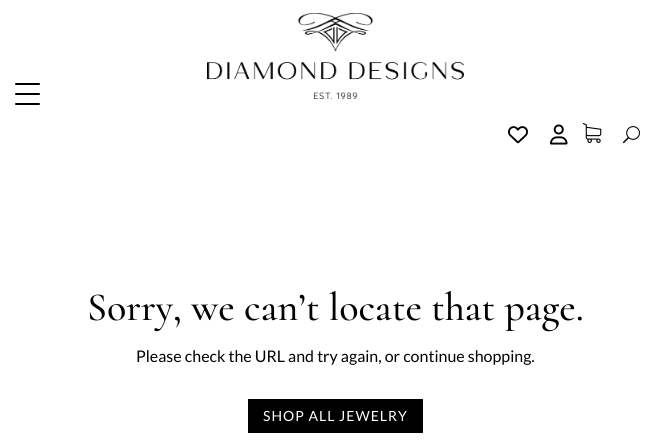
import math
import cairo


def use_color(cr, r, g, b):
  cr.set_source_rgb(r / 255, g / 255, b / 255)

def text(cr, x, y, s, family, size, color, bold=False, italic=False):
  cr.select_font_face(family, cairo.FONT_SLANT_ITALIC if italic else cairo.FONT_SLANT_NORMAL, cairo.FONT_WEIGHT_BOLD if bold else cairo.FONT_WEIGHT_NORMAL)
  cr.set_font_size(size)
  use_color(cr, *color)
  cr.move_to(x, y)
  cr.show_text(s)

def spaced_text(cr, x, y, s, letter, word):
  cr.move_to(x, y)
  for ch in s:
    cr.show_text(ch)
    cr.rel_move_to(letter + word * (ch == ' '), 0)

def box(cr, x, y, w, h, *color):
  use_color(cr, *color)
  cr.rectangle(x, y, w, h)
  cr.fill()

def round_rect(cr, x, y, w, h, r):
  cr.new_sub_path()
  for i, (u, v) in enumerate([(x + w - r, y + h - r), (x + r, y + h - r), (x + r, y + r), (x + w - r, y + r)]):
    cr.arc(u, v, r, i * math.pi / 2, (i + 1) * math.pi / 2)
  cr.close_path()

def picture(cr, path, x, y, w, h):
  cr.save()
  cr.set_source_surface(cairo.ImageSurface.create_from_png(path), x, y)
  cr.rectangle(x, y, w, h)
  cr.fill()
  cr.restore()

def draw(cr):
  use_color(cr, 255, 255, 255)
  cr.paint()
  picture(cr, "img_01.png", 207, 13, 257, 86)
  use_color(cr, 0, 0, 0)
  round_rect(cr, 15, 83, 25, 2, 1)
  cr.fill()
  round_rect(cr, 15, 93, 25, 2, 1)
  cr.fill()
  round_rect(cr, 15, 103, 25, 2, 1)
  cr.fill()
  picture(cr, "img_02.png", 508, 126, 20, 18)
  picture(cr, "img_03.png", 550, 124, 18, 21)
  picture(cr, "img_04.png", 582, 123, 20, 20)
  picture(cr, "img_05.png", 623, 126, 17, 18)
  box(cr, 248, 399, 175, 34, 0, 0, 0)
  text(cr, 87, 320, "Sorry, we can’t locate that page.", "Cormorant Light", 40, (0, 0, 0))
  text(cr, 136, 362, "Please check the URL and try again, or continue shopping.", "Lato", 16, (0, 0, 0))
  cr.set_font_size(14)
  use_color(cr, 255, 255, 255)
  spaced_text(cr, 263, 421, "SHOP ALL JEWELRY", 1, 0)


surface = cairo.ImageSurface(cairo.FORMAT_RGB24, 671, 444)
cr = cairo.Context(surface)
options = cairo.FontOptions()
options.set_hint_metrics(cairo.HINT_METRICS_OFF)
options.set_hint_style(cairo.HINT_STYLE_NONE)
cr.set_font_options(options)
cr.set_miter_limit(4)
draw(cr)
surface.write_to_png("out.png")
